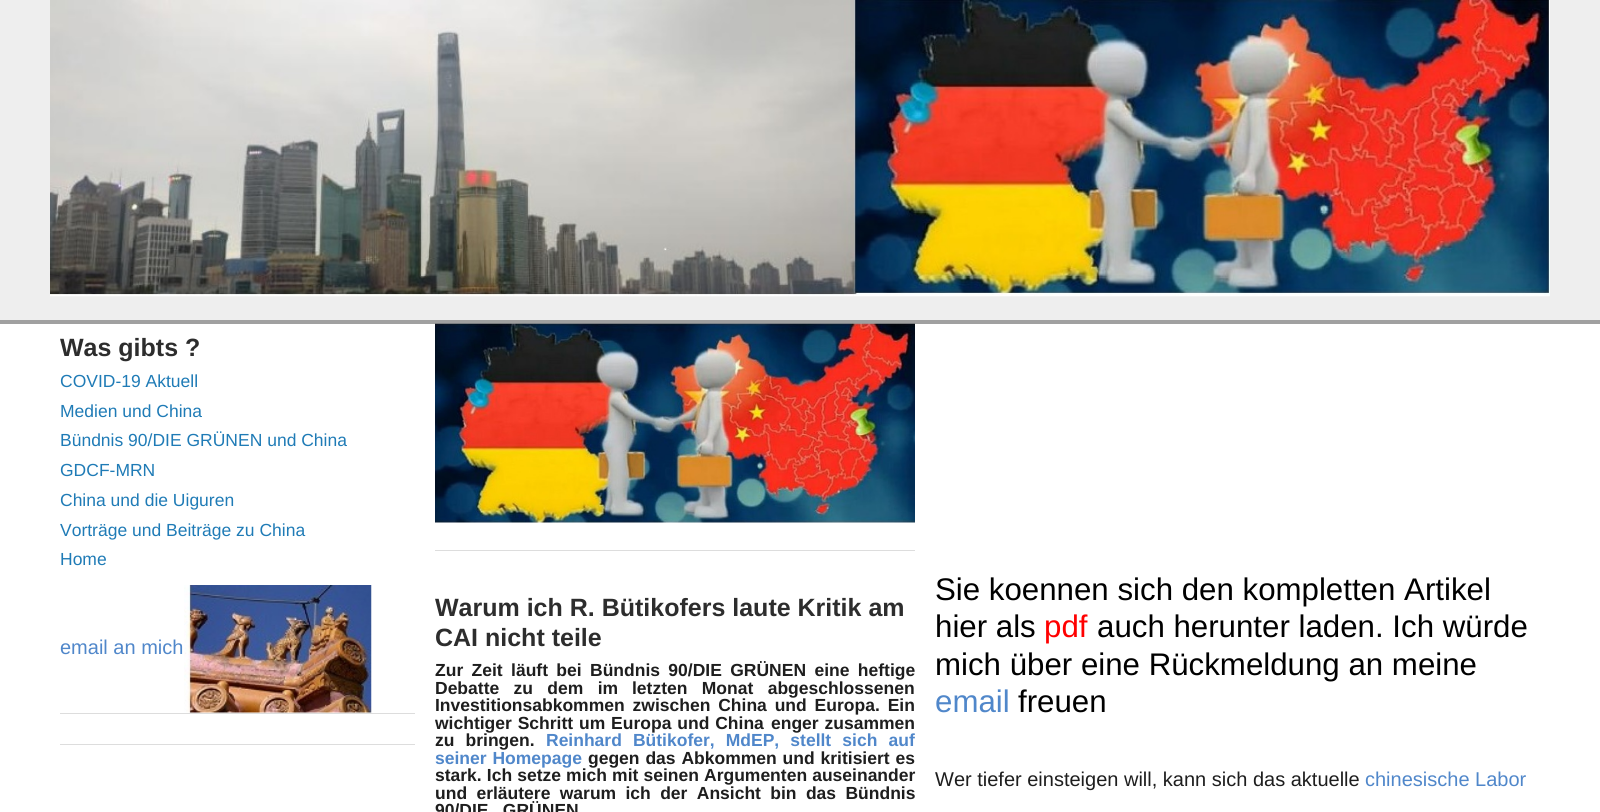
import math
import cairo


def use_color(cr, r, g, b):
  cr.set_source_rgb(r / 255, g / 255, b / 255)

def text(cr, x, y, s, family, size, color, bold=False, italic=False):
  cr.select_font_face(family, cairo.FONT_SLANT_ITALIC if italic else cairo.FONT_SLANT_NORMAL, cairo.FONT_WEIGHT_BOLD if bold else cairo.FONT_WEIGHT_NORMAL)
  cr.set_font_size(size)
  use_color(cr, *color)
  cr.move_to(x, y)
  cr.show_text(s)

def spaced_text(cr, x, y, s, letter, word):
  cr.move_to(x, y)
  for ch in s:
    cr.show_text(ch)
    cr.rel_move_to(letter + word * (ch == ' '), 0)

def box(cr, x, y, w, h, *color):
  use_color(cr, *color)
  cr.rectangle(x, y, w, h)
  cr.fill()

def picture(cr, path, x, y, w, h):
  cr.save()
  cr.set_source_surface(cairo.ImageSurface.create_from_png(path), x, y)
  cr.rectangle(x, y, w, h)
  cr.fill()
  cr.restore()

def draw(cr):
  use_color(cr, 255, 255, 255)
  cr.paint()
  box(cr, 0, 0, 1600, 320, 238, 238, 238)
  box(cr, 0, 320, 1600, 4, 160, 160, 160)
  picture(cr, "img_01.png", 50, 0, 1500, 297)
  picture(cr, "img_02.png", 184, 585, 188, 128)
  box(cr, 60, 713, 355, 1, 221, 221, 221)
  box(cr, 60, 744, 355, 1, 221, 221, 221)
  picture(cr, "img_03.png", 435, 323, 480, 200)
  box(cr, 435, 550, 480, 1, 221, 221, 221)
  text(cr, 60, 356, "Was gibts ?", "Liberation Sans", 25, (45, 45, 45), bold=True)
  text(cr, 60, 387, "COVID-19 Aktuell", "Liberation Sans", 17.5, (31, 123, 182))
  text(cr, 60, 417, "Medien und China", "Liberation Sans", 17.5, (31, 123, 182))
  text(cr, 60, 446, "Bündnis 90/DIE GRÜNEN und China", "Liberation Sans", 17.5, (31, 123, 182))
  text(cr, 60, 476, "GDCF-MRN", "Liberation Sans", 17.5, (31, 123, 182))
  text(cr, 60, 506, "China und die Uiguren", "Liberation Sans", 17.5, (31, 123, 182))
  text(cr, 60, 536, "Vorträge und Beiträge zu China", "Liberation Sans", 17.5, (31, 123, 182))
  text(cr, 60, 565, "Home", "Liberation Sans", 17.5, (31, 123, 182))
  text(cr, 60, 654, "email an mich", "Liberation Sans", 20, (80, 135, 202))
  text(cr, 435, 616, "Warum ich R. Bütikofers laute Kritik am", "Liberation Sans", 25, (45, 45, 45), bold=True)
  text(cr, 435, 646, "CAI nicht teile", "Liberation Sans", 25, (45, 45, 45), bold=True)
  cr.set_font_size(17.5)
  use_color(cr, 30, 30, 30)
  spaced_text(cr, 435, 676, "Zur Zeit läuft bei Bündnis 90/DIE GRÜNEN eine heftige", 0, 3.5)
  spaced_text(cr, 435, 694, "Debatte zu dem im", 0, 9.5)
  spaced_text(cr, 632, 694, "letzten Monat abgeschlossenen", 0, 9.5)
  spaced_text(cr, 435, 711, "Investitionsabkommen zwischen China und Europa. Ein", 0, 3)
  spaced_text(cr, 435, 729, "wichtiger Schritt um Europa und China", 0, 1)
  spaced_text(cr, 771, 729, "enger zusammen", 0, 1)
  spaced_text(cr, 435, 746, "zu bringen.", 0, 6.25)
  use_color(cr, 80, 135, 202)
  spaced_text(cr, 546, 746, "Reinhard Bütikofer, MdEP, stellt sich auf", 0, 6.25)
  spaced_text(cr, 435, 764, "seiner Homepage", 0, 1)
  use_color(cr, 30, 30, 30)
  spaced_text(cr, 588, 764, "gegen das Abkommen und kritisiert es", 0, 1)
  spaced_text(cr, 435, 781, "stark. Ich setze mich mit seinen Argumenten auseinander", 0, 0.25)
  spaced_text(cr, 435, 799, "und erläutere warum ich der Ansicht bin das Bündnis", 0, 4.5)
  spaced_text(cr, 435, 816, "90/DIE GRÜNEN", 0, 9.5)
  text(cr, 935, 600, "Sie koennen sich den kompletten Artikel", "Liberation Sans", 31.25, (0, 0, 0))
  text(cr, 935, 637, "hier als", "Liberation Sans", 31.25, (0, 0, 0))
  text(cr, 1044, 637, "pdf", "Liberation Sans", 31.25, (255, 0, 0))
  text(cr, 1097, 637, "auch herunter laden. Ich würde", "Liberation Sans", 31.25, (0, 0, 0))
  text(cr, 935, 675, "mich über eine Rückmeldung an meine", "Liberation Sans", 31.25, (0, 0, 0))
  text(cr, 935, 712, "email", "Liberation Sans", 31.25, (80, 135, 202))
  text(cr, 1018, 712, "freuen", "Liberation Sans", 31.25, (0, 0, 0))
  text(cr, 935, 786, "Wer tiefer einsteigen will, kann sich das aktuelle", "Liberation Sans", 20, (30, 30, 30))
  text(cr, 1365, 786, "chinesische Labor", "Liberation Sans", 20, (80, 135, 202))


surface = cairo.ImageSurface(cairo.FORMAT_RGB24, 1600, 812)
cr = cairo.Context(surface)
options = cairo.FontOptions()
options.set_hint_metrics(cairo.HINT_METRICS_OFF)
options.set_hint_style(cairo.HINT_STYLE_NONE)
cr.set_font_options(options)
cr.set_miter_limit(4)
draw(cr)
surface.write_to_png("out.png")
